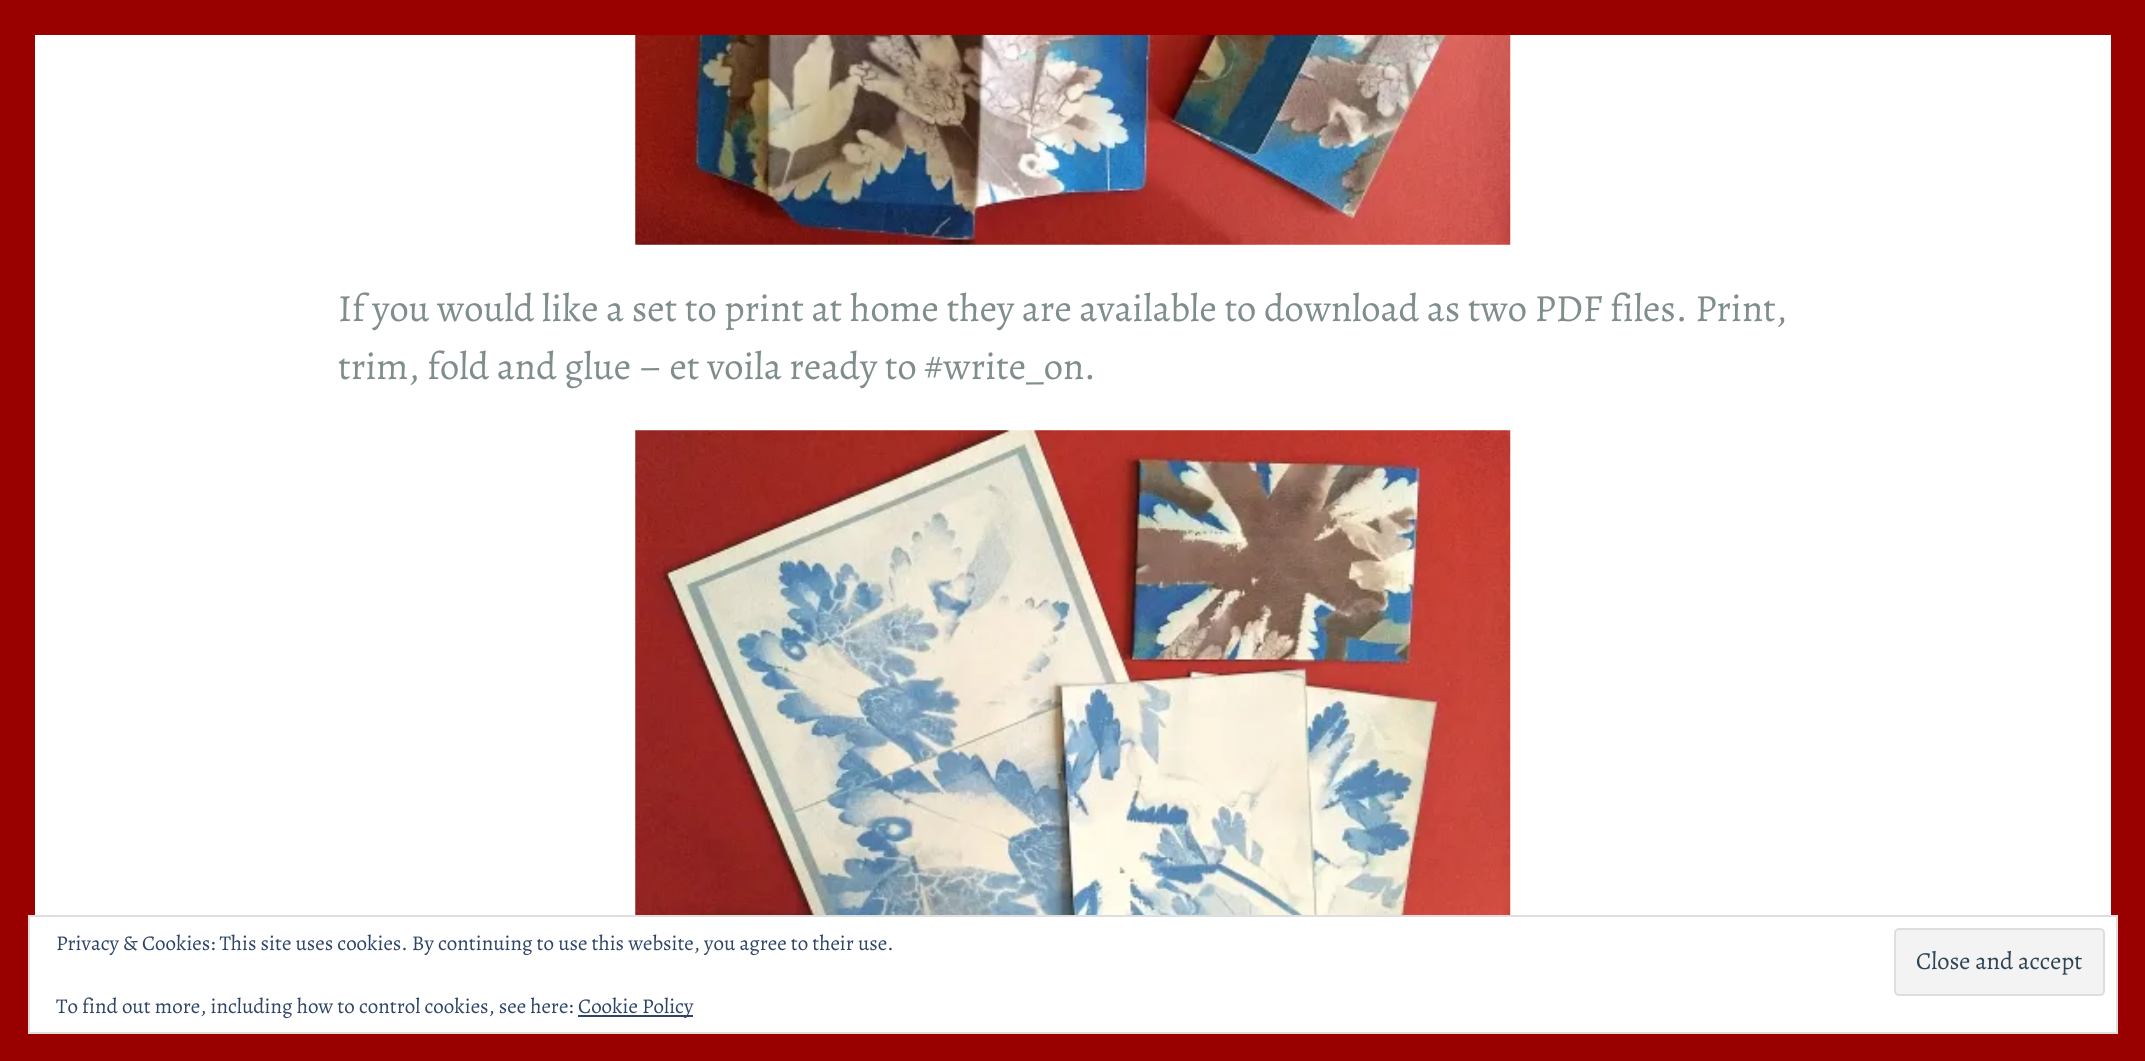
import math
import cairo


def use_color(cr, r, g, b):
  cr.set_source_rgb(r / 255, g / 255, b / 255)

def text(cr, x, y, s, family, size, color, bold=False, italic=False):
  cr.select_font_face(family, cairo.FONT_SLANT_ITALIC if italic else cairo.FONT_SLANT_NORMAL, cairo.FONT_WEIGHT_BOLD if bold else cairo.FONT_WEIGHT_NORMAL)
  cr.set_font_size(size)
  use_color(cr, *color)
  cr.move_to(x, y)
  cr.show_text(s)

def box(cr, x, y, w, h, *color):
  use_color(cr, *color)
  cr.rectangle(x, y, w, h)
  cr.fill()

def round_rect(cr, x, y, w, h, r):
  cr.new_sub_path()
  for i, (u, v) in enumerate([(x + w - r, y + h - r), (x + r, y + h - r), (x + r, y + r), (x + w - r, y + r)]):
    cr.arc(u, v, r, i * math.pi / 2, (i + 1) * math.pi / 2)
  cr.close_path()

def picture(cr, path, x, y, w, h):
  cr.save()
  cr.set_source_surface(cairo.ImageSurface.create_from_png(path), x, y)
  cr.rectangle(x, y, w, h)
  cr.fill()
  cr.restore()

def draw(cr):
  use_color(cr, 153, 0, 0)
  cr.paint()
  box(cr, 35, 35, 2076, 880, 255, 255, 255)
  picture(cr, "img_01.png", 635, 35, 876, 210)
  picture(cr, "img_02.png", 635, 430, 876, 485)
  cr.rectangle(29, 916, 2088, 117)
  cr.fill_preserve()
  use_color(cr, 222, 222, 222)
  cr.stroke()
  use_color(cr, 243, 243, 243)
  round_rect(cr, 1895, 929, 209, 66, 4)
  cr.fill_preserve()
  use_color(cr, 222, 222, 222)
  cr.stroke()
  box(cr, 578, 1015, 115, 2, 46, 68, 103)
  text(cr, 338, 321, "If you would like a set to print at home they are available to download as two PDF files. Print,", "Alegreya", 38.5, (127, 141, 140))
  text(cr, 338, 379, "trim, fold and glue – et voila ready to #write_on.", "Alegreya", 38.5, (127, 141, 140))
  text(cr, 56, 950, "Privacy & Cookies: This site uses cookies. By continuing to use this website, you agree to their use.", "Alegreya", 21, (46, 68, 103))
  text(cr, 1916, 969, "Close and accept", "Alegreya", 24.5, (46, 68, 83))
  text(cr, 56, 1013, "To find out more, including how to control cookies, see here:", "Alegreya", 21, (46, 68, 103))
  text(cr, 578, 1013, "Cookie Policy", "Alegreya", 21, (46, 68, 103))


surface = cairo.ImageSurface(cairo.FORMAT_RGB24, 2145, 1061)
cr = cairo.Context(surface)
options = cairo.FontOptions()
options.set_hint_metrics(cairo.HINT_METRICS_OFF)
options.set_hint_style(cairo.HINT_STYLE_NONE)
cr.set_font_options(options)
cr.set_miter_limit(4)
draw(cr)
surface.write_to_png("out.png")
